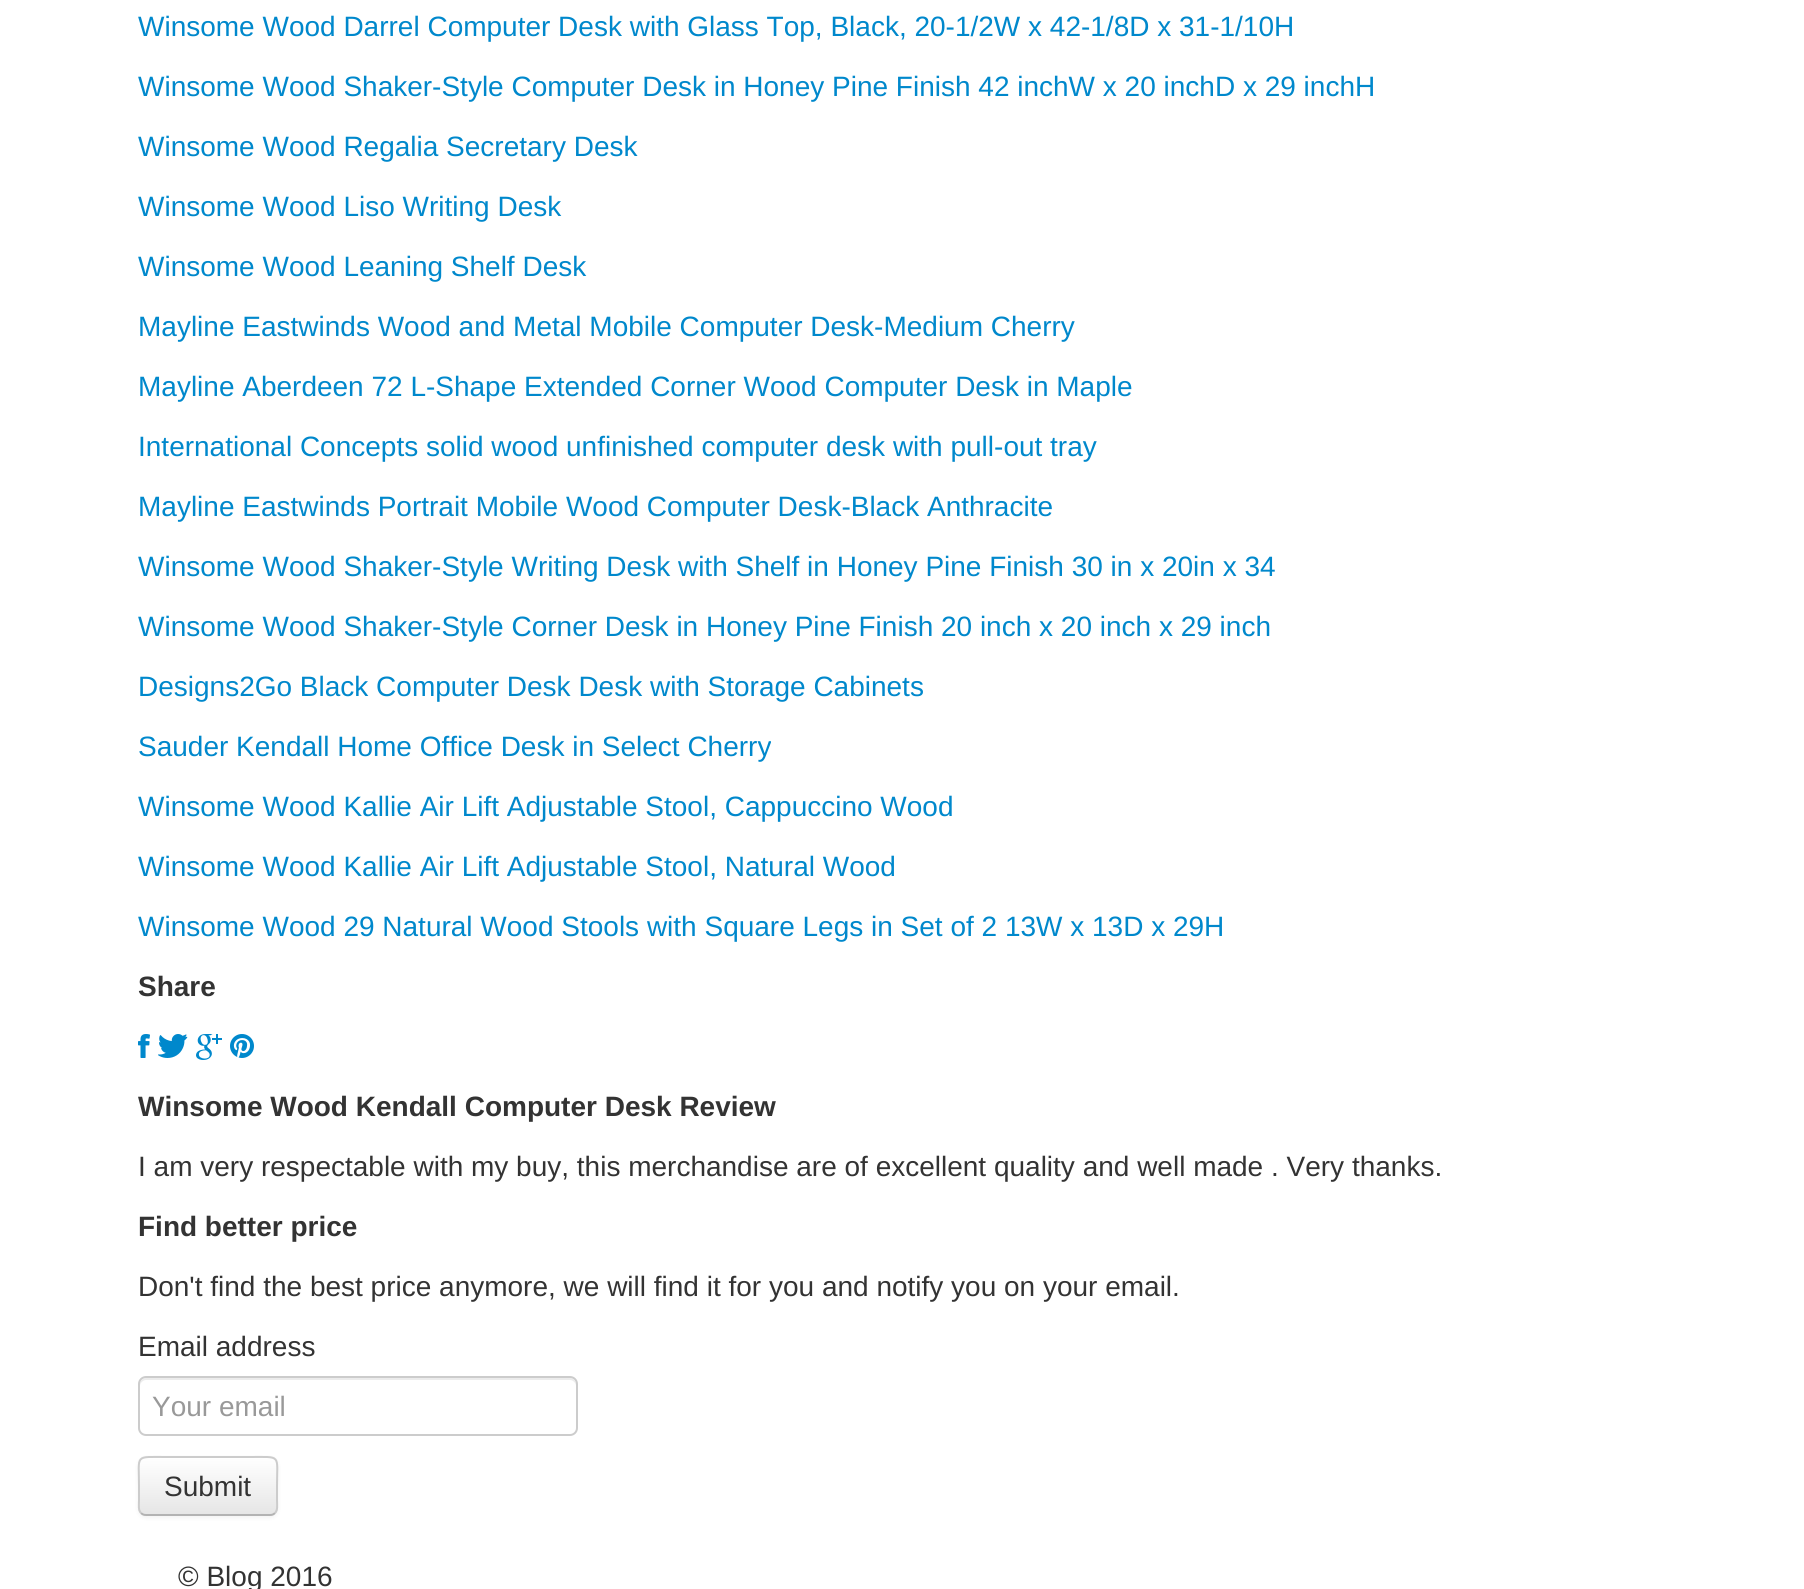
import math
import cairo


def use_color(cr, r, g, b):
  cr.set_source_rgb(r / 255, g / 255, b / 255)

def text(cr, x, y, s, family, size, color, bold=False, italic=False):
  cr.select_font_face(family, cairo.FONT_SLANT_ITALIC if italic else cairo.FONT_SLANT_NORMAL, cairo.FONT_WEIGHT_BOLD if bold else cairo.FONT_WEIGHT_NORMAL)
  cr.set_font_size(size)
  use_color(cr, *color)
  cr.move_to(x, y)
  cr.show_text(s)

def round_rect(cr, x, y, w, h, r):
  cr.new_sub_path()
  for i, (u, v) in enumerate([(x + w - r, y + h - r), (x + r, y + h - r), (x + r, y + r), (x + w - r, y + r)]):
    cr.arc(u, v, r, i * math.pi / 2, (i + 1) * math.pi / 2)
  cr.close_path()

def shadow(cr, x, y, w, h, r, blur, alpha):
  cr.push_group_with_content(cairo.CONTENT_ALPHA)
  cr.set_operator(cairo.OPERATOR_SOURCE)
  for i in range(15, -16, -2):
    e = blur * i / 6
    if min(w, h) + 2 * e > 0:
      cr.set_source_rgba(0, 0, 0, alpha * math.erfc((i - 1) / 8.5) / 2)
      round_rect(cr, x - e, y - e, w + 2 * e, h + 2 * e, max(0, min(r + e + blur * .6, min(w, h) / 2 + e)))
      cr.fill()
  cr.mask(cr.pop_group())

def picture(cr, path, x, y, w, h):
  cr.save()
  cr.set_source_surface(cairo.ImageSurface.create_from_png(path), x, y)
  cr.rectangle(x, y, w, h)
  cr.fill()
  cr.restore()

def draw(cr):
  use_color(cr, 255, 255, 255)
  cr.paint()
  picture(cr, "img_01.png", 138, 1034, 12, 24)
  picture(cr, "img_02.png", 158, 1034, 30, 24)
  picture(cr, "img_03.png", 196, 1034, 26, 26)
  picture(cr, "img_04.png", 230, 1034, 24, 24)
  use_color(cr, 236, 236, 236)
  cr.new_path()
  cr.move_to(146, 1380)
  cr.line_to(570, 1380)
  cr.curve_to(573, 1380, 576, 1383, 576, 1386)
  cr.line_to(576, 1384)
  cr.curve_to(576, 1381, 573, 1378, 570, 1378)
  cr.line_to(146, 1378)
  cr.curve_to(143, 1378, 140, 1381, 140, 1384)
  cr.line_to(140, 1386)
  cr.curve_to(140, 1383, 143, 1380, 146, 1380)
  cr.close_path()
  cr.fill()
  round_rect(cr, 139, 1377, 438, 58, 7)
  use_color(cr, 204, 204, 204)
  cr.stroke()
  use_color(cr, 0, 0, 0)
  shadow(cr, 138, 1458, 140, 60, 8, 2, 0.05)
  use_color(cr, 245, 245, 245)
  round_rect(cr, 138, 1456, 140, 60, 8)
  cr.fill()
  cr.save()
  round_rect(cr, 138, 1456, 140, 60, 8)
  cr.clip()
  gradient = cairo.LinearGradient(208, 1458, 208, 1514)
  gradient.add_color_stop_rgba(0, 1, 1, 1, 1)
  gradient.add_color_stop_rgba(1, 0.902, 0.902, 0.902, 1)
  cr.set_source(gradient)
  cr.rectangle(138, 1458, 140, 56)
  cr.fill()
  cr.restore()
  cr.new_path()
  cr.move_to(275, 1513)
  cr.curve_to(273.5, 1514.5, 272, 1515, 270, 1515)
  cr.line_to(146, 1515)
  cr.curve_to(144, 1515, 142.5, 1514.5, 141, 1513)
  use_color(cr, 179, 179, 179)
  cr.stroke()
  cr.new_path()
  cr.move_to(141, 1513)
  cr.curve_to(138, 1510, 139, 1504.5, 139, 1500.5)
  cr.line_to(139, 1486)
  cr.curve_to(139, 1454, 134, 1457, 166.5, 1457)
  cr.line_to(249.5, 1457)
  cr.curve_to(282, 1457, 277, 1454, 277, 1486)
  cr.line_to(277, 1500.5)
  cr.curve_to(277, 1504.5, 278, 1510, 275, 1513)
  use_color(cr, 204, 204, 204)
  cr.stroke()
  text(cr, 138, 36, "Winsome Wood Darrel Computer Desk with Glass Top, Black, 20-1/2W x 42-1/8D x 31-1/10H", "Liberation Sans", 28, (0, 136, 204))
  text(cr, 138, 96, "Winsome Wood Shaker-Style Computer Desk in Honey Pine Finish 42 inchW x 20 inchD x 29 inchH", "Liberation Sans", 28, (0, 136, 204))
  text(cr, 138, 156, "Winsome Wood Regalia Secretary Desk", "Liberation Sans", 28, (0, 136, 204))
  text(cr, 138, 216, "Winsome Wood Liso Writing Desk", "Liberation Sans", 28, (0, 136, 204))
  text(cr, 138, 276, "Winsome Wood Leaning Shelf Desk", "Liberation Sans", 28, (0, 136, 204))
  text(cr, 138, 336, "Mayline Eastwinds Wood and Metal Mobile Computer Desk-Medium Cherry", "Liberation Sans", 28, (0, 136, 204))
  text(cr, 138, 396, "Mayline Aberdeen 72 L-Shape Extended Corner Wood Computer Desk in Maple", "Liberation Sans", 28, (0, 136, 204))
  text(cr, 138, 456, "International Concepts solid wood unfinished computer desk with pull-out tray", "Liberation Sans", 28, (0, 136, 204))
  text(cr, 138, 516, "Mayline Eastwinds Portrait Mobile Wood Computer Desk-Black Anthracite", "Liberation Sans", 28, (0, 136, 204))
  text(cr, 138, 576, "Winsome Wood Shaker-Style Writing Desk with Shelf in Honey Pine Finish 30 in x 20in x 34", "Liberation Sans", 28, (0, 136, 204))
  text(cr, 138, 636, "Winsome Wood Shaker-Style Corner Desk in Honey Pine Finish 20 inch x 20 inch x 29 inch", "Liberation Sans", 28, (0, 136, 204))
  text(cr, 138, 696, "Designs2Go Black Computer Desk Desk with Storage Cabinets", "Liberation Sans", 28, (0, 136, 204))
  text(cr, 138, 756, "Sauder Kendall Home Office Desk in Select Cherry", "Liberation Sans", 28, (0, 136, 204))
  text(cr, 138, 816, "Winsome Wood Kallie Air Lift Adjustable Stool, Cappuccino Wood", "Liberation Sans", 28, (0, 136, 204))
  text(cr, 138, 876, "Winsome Wood Kallie Air Lift Adjustable Stool, Natural Wood", "Liberation Sans", 28, (0, 136, 204))
  text(cr, 138, 936, "Winsome Wood 29 Natural Wood Stools with Square Legs in Set of 2 13W x 13D x 29H", "Liberation Sans", 28, (0, 136, 204))
  text(cr, 138, 996, "Share", "Liberation Sans", 28, (51, 51, 51), bold=True)
  text(cr, 138, 1116, "Winsome Wood Kendall Computer Desk Review", "Liberation Sans", 28, (51, 51, 51), bold=True)
  text(cr, 138, 1176, "I am very respectable with my buy, this merchandise are of excellent quality and well made . Very thanks.", "Liberation Sans", 28, (51, 51, 51))
  text(cr, 138, 1236, "Find better price", "Liberation Sans", 28, (51, 51, 51), bold=True)
  text(cr, 138, 1296, "Don't find the best price anymore, we will find it for you and notify you on your email.", "Liberation Sans", 28, (51, 51, 51))
  text(cr, 138, 1356, "Email address", "Liberation Sans", 28, (51, 51, 51))
  text(cr, 152, 1416, "Your email", "Liberation Sans", 28, (153, 153, 153))
  text(cr, 164, 1496, "Submit", "Liberation Sans", 28, (51, 51, 51))
  text(cr, 178, 1586, "© Blog 2016", "Liberation Sans", 28, (51, 51, 51))


surface = cairo.ImageSurface(cairo.FORMAT_RGB24, 1804, 1589)
cr = cairo.Context(surface)
options = cairo.FontOptions()
options.set_hint_metrics(cairo.HINT_METRICS_OFF)
options.set_hint_style(cairo.HINT_STYLE_NONE)
cr.set_font_options(options)
cr.set_miter_limit(4)
draw(cr)
surface.write_to_png("out.png")
